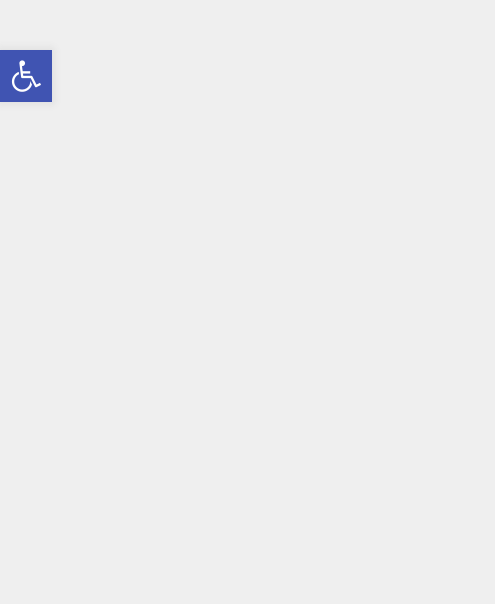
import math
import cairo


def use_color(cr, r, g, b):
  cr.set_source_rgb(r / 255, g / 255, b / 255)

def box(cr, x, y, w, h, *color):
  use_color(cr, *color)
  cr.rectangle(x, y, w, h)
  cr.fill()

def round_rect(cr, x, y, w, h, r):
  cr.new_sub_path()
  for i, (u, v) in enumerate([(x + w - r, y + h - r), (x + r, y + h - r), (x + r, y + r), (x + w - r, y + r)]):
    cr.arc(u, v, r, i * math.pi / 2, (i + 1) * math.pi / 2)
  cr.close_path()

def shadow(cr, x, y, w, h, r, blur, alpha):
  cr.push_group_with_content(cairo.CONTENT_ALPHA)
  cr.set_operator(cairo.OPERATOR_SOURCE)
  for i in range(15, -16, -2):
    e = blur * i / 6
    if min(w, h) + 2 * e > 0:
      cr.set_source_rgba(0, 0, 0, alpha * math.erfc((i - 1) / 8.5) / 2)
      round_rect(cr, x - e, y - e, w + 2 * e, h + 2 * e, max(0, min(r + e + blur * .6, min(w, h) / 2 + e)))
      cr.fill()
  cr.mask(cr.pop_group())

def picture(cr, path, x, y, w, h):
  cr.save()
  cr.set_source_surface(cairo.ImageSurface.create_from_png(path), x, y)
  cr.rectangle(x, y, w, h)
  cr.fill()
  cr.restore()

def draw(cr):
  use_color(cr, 239, 239, 239)
  cr.paint()
  use_color(cr, 0, 0, 0)
  shadow(cr, 0, 50, 52, 52, 0, 5, 0.1)
  box(cr, 0, 50, 52, 52, 64, 84, 178)
  picture(cr, "img_01.png", 11, 60, 30, 32)


surface = cairo.ImageSurface(cairo.FORMAT_RGB24, 495, 604)
cr = cairo.Context(surface)
options = cairo.FontOptions()
options.set_hint_metrics(cairo.HINT_METRICS_OFF)
options.set_hint_style(cairo.HINT_STYLE_NONE)
cr.set_font_options(options)
cr.set_miter_limit(4)
draw(cr)
surface.write_to_png("out.png")
